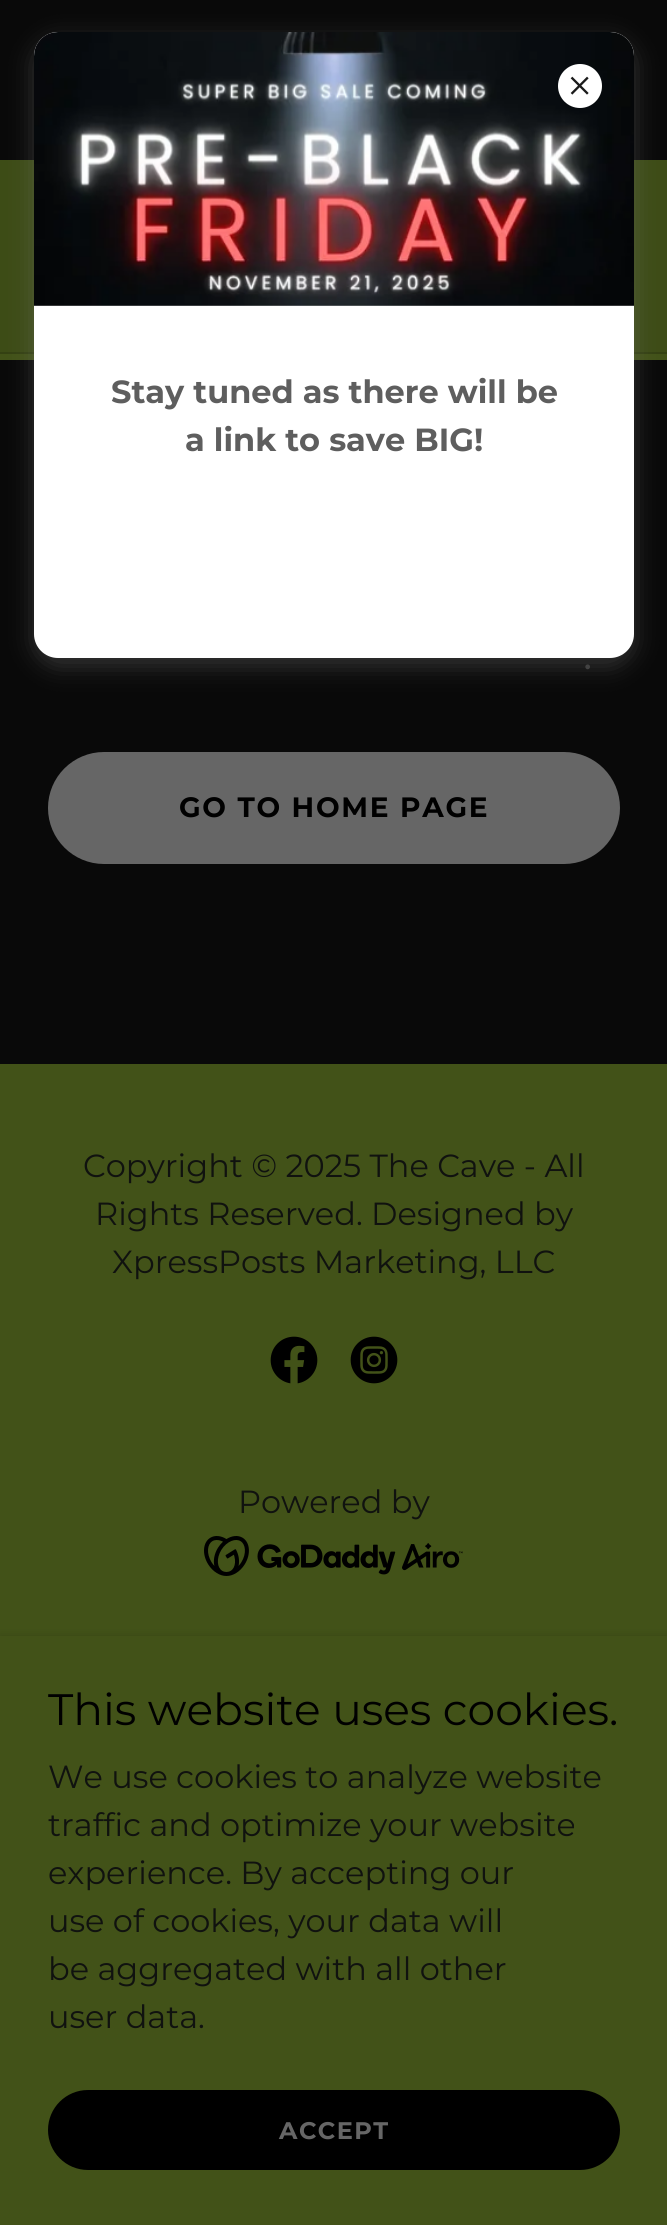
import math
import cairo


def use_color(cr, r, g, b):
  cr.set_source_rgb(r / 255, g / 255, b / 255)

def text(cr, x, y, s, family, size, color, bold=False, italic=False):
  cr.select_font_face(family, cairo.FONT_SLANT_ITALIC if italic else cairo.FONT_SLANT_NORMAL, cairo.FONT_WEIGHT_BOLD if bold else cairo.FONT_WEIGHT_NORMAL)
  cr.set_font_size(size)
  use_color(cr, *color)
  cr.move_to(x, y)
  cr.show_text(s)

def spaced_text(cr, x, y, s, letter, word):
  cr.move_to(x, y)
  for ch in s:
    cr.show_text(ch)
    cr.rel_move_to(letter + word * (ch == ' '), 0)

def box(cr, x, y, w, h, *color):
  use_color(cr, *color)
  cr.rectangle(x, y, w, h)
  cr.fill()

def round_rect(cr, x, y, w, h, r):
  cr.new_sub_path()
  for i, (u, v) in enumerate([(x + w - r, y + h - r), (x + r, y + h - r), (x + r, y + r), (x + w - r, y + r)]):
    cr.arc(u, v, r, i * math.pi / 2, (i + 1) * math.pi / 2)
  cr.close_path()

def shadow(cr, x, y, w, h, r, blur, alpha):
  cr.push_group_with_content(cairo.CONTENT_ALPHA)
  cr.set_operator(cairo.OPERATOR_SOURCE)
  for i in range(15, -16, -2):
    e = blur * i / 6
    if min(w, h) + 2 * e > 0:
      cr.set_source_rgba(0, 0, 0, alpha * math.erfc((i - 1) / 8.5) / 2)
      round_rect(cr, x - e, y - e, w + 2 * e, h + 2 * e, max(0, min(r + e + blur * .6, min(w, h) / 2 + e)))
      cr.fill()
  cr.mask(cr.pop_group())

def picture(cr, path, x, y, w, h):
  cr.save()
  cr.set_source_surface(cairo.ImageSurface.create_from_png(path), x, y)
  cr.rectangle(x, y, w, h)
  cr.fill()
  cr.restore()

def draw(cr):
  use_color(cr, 66, 82, 24)
  cr.paint()
  box(cr, 0, 0, 667, 160, 9, 9, 9)
  box(cr, 0, 160, 667, 192, 61, 76, 22)
  box(cr, 0, 352, 667, 2, 52, 65, 18)
  box(cr, 0, 360, 667, 704, 9, 9, 9)
  use_color(cr, 117, 117, 117)
  shadow(cr, 34, 40, 600, 626, 24, 12, 0.4)
  use_color(cr, 255, 255, 255)
  round_rect(cr, 34, 32, 600, 626, 24)
  cr.fill()
  picture(cr, "img_02.png", 34, 32, 600, 274)
  cr.arc(580, 86, 22, 0, 2 * math.pi)
  cr.fill()
  picture(cr, "img_01.png", 570, 76, 19, 19)
  use_color(cr, 102, 102, 102)
  round_rect(cr, 48, 752, 572, 112, 56)
  cr.fill()
  picture(cr, "img_03.png", 270, 1336, 48, 48)
  picture(cr, "img_04.png", 350, 1336, 48, 48)
  picture(cr, "img_05.png", 204, 1536, 259, 40)
  use_color(cr, 0, 0, 0)
  shadow(cr, 0, 1640, 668, 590, 0, 6, 0.3)
  box(cr, 0, 1636, 667, 589, 66, 82, 24)
  use_color(cr, 0, 0, 0)
  round_rect(cr, 48, 2090, 572, 80, 40)
  cr.fill()
  text(cr, 111, 403, "Stay tuned as there will be", "Montserrat", 32, (94, 94, 94), bold=True)
  text(cr, 185, 451, "a link to save BIG!", "Montserrat", 32, (94, 94, 94), bold=True)
  text(cr, 583, 669, ".", "Montserrat", 44, (66, 66, 66))
  cr.select_font_face("Montserrat", cairo.FONT_SLANT_NORMAL, cairo.FONT_WEIGHT_BOLD)
  cr.set_font_size(28)
  use_color(cr, 0, 0, 0)
  spaced_text(cr, 179, 817, "GO TO HOME PAGE", 1.75, 0)
  text(cr, 83, 1177, "Copyright © 2025 The Cave - All", "Montserrat", 32, (16, 18, 15))
  text(cr, 95, 1225, "Rights Reserved. Designed by", "Montserrat", 32, (16, 18, 15))
  text(cr, 112, 1273, "XpressPosts Marketing, LLC", "Montserrat", 32, (16, 18, 15))
  text(cr, 238, 1513, "Powered by", "Montserrat", 32, (16, 18, 15))
  text(cr, 48, 1725, "This website uses cookies.", "Montserrat", 44, (0, 0, 0))
  text(cr, 48, 1788, "We use cookies to analyze website", "Montserrat", 32, (16, 18, 15))
  text(cr, 48, 1836, "traffic and optimize your website", "Montserrat", 32, (16, 18, 15))
  text(cr, 48, 1884, "experience. By accepting our", "Montserrat", 32, (16, 18, 15))
  text(cr, 48, 1932, "use of cookies, your data will", "Montserrat", 32, (16, 18, 15))
  text(cr, 48, 1980, "be aggregated with all other", "Montserrat", 32, (16, 18, 15))
  text(cr, 48, 2028, "user data.", "Montserrat", 32, (16, 18, 15))
  cr.select_font_face("Montserrat", cairo.FONT_SLANT_NORMAL, cairo.FONT_WEIGHT_BOLD)
  cr.set_font_size(24)
  use_color(cr, 102, 102, 102)
  spaced_text(cr, 279, 2139, "ACCEPT", 1.5, 0)


surface = cairo.ImageSurface(cairo.FORMAT_RGB24, 667, 2225)
cr = cairo.Context(surface)
options = cairo.FontOptions()
options.set_hint_metrics(cairo.HINT_METRICS_OFF)
options.set_hint_style(cairo.HINT_STYLE_NONE)
cr.set_font_options(options)
cr.set_miter_limit(4)
draw(cr)
surface.write_to_png("out.png")
